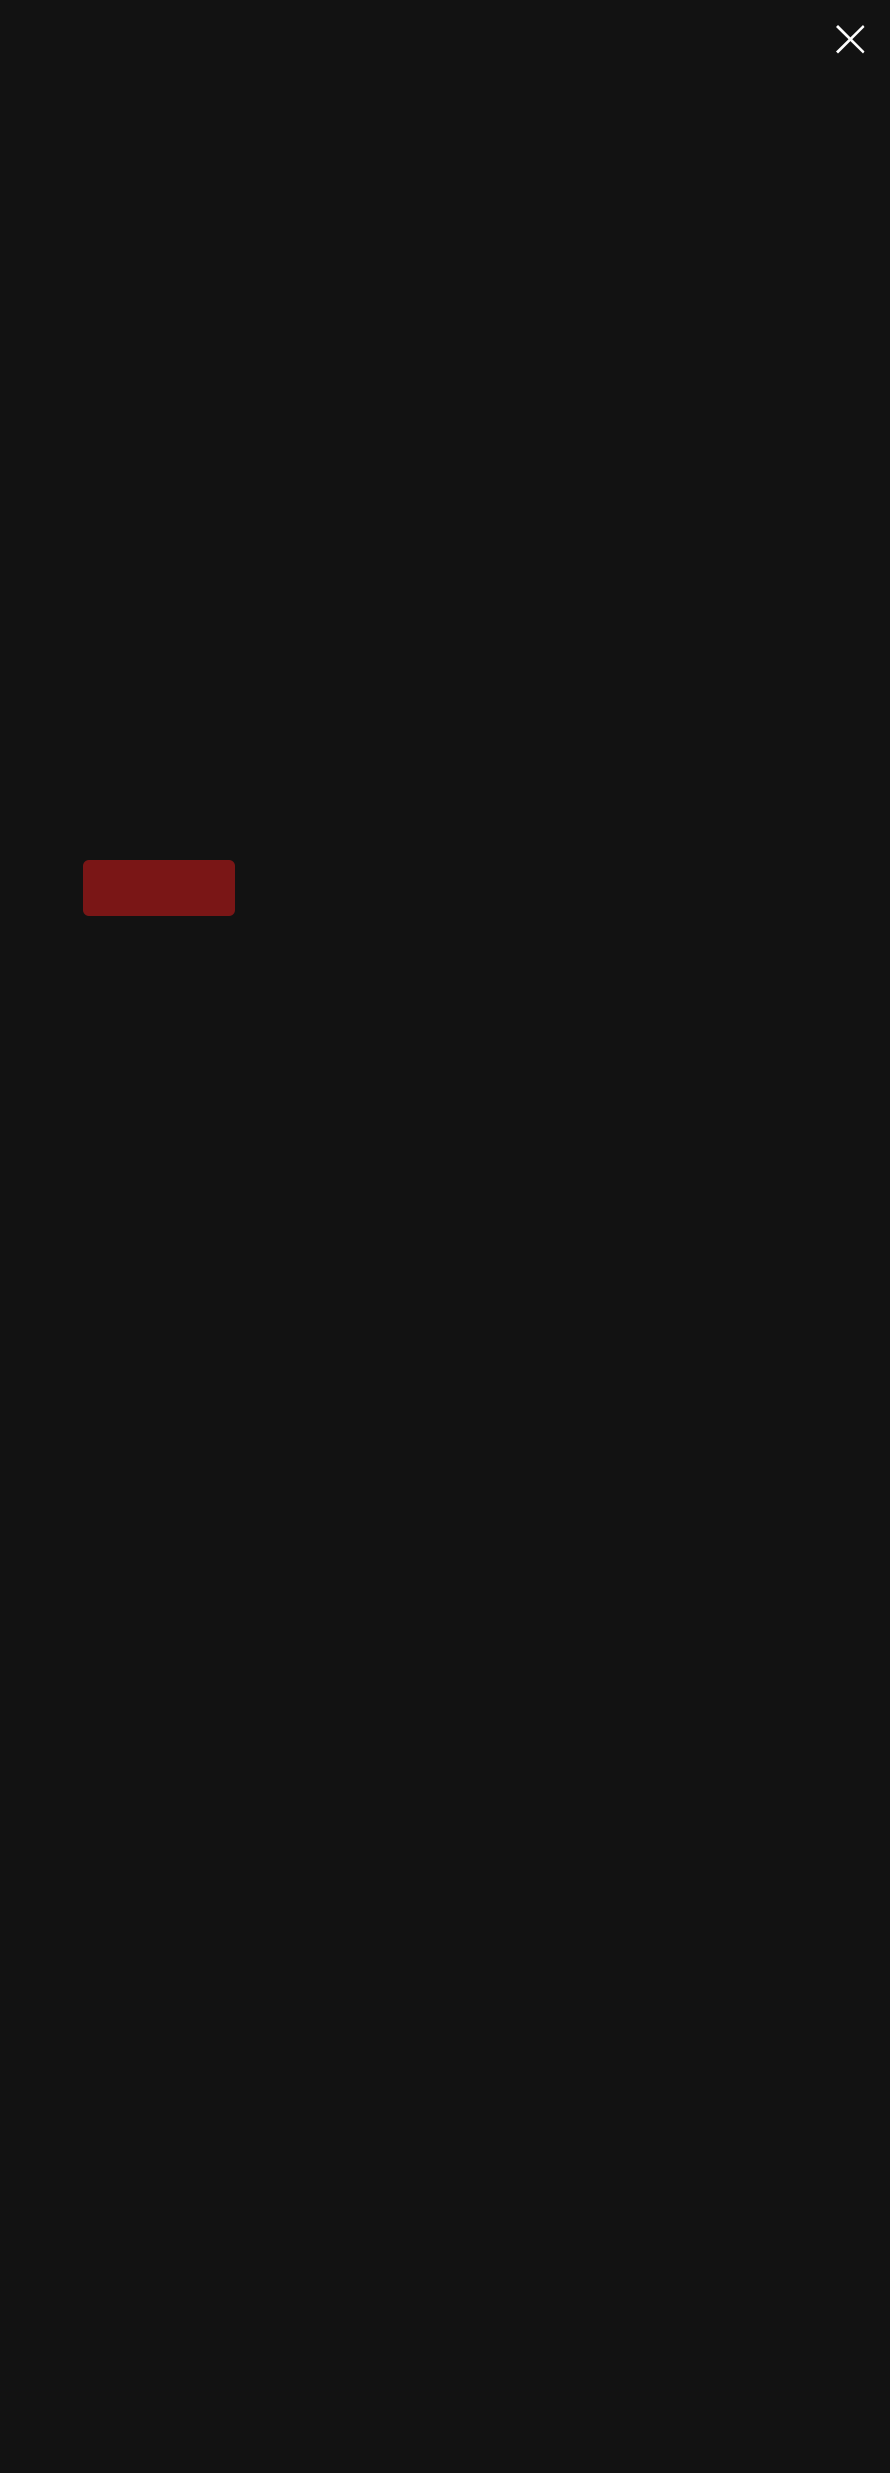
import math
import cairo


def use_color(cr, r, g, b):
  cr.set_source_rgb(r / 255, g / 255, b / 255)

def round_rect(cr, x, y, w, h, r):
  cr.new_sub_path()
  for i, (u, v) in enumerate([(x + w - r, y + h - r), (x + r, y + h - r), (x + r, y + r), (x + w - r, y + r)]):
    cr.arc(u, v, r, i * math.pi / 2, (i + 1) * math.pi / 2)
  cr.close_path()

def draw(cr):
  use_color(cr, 18, 18, 18)
  cr.paint()
  use_color(cr, 255, 255, 255)
  cr.set_fill_rule(cairo.FILL_RULE_EVEN_ODD)
  cr.new_path()
  cr.move_to(836, 27)
  cr.line_to(838, 25)
  cr.line_to(864.5, 51.5)
  cr.line_to(863, 53.5)
  cr.close_path()
  cr.fill()
  cr.new_path()
  cr.move_to(863, 25)
  cr.line_to(864.5, 27)
  cr.line_to(838, 53.5)
  cr.line_to(836, 51.5)
  cr.close_path()
  cr.fill()
  use_color(cr, 122, 22, 22)
  round_rect(cr, 83, 860, 152, 56, 6)
  cr.fill()


surface = cairo.ImageSurface(cairo.FORMAT_RGB24, 890, 2473)
cr = cairo.Context(surface)
options = cairo.FontOptions()
options.set_hint_metrics(cairo.HINT_METRICS_OFF)
options.set_hint_style(cairo.HINT_STYLE_NONE)
cr.set_font_options(options)
cr.set_miter_limit(4)
draw(cr)
surface.write_to_png("out.png")
